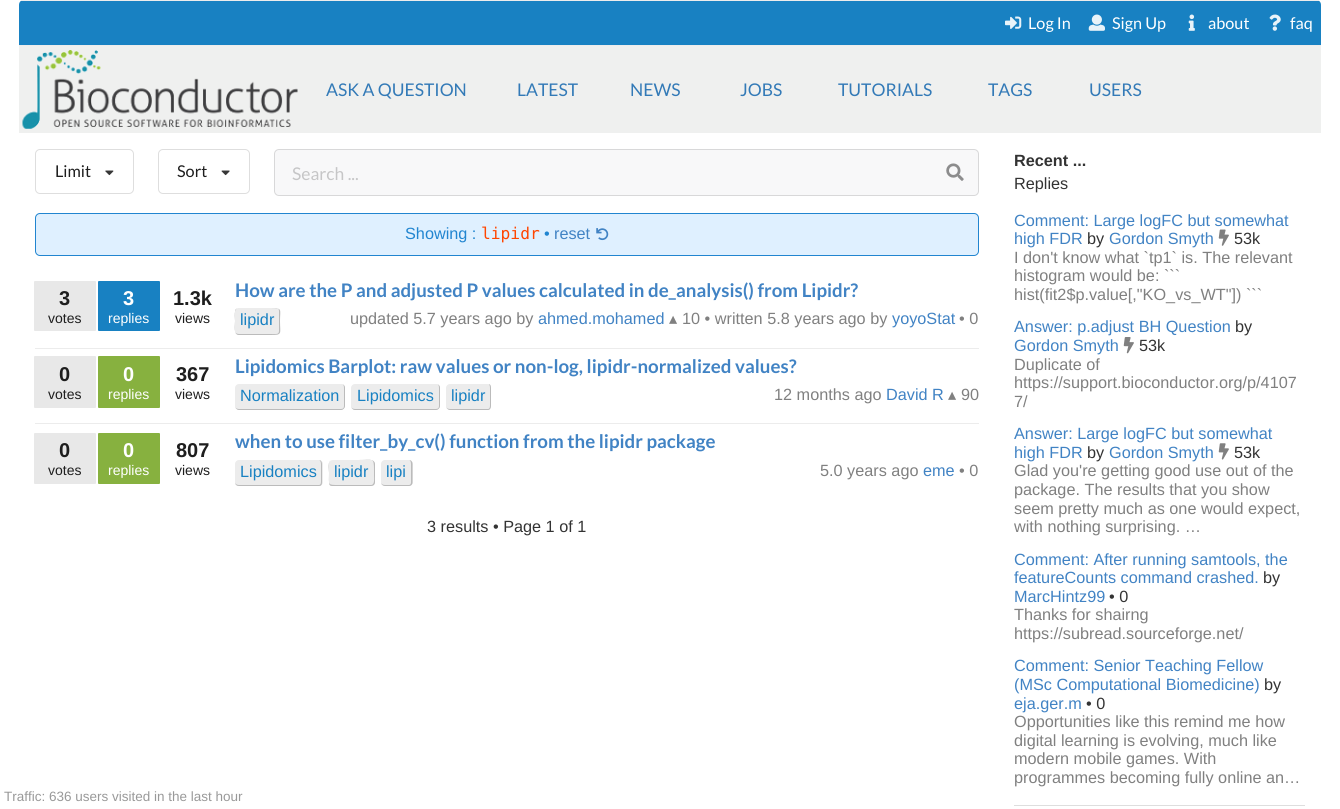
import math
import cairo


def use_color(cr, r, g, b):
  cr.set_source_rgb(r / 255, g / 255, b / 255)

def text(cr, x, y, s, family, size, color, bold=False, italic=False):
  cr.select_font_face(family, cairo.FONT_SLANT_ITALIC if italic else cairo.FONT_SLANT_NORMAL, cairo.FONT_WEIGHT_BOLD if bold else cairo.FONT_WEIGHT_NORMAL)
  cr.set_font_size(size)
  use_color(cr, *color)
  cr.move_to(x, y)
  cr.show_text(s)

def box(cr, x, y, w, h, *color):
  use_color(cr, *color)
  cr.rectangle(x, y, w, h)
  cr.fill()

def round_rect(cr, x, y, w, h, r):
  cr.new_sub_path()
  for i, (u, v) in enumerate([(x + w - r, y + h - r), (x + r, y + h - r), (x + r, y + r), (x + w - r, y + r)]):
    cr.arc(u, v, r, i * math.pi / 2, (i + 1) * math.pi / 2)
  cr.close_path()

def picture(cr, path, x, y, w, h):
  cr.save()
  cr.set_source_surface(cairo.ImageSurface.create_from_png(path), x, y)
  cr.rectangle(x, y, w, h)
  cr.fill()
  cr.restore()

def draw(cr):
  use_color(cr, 255, 255, 255)
  cr.paint()
  use_color(cr, 24, 129, 194)
  cr.new_path()
  cr.move_to(24, 0)
  cr.line_to(1316, 0)
  cr.curve_to(1319, 0, 1321, 2, 1321, 5)
  cr.line_to(1321, 46)
  cr.line_to(19, 46)
  cr.line_to(19, 5)
  cr.curve_to(19, 2, 21, 0, 24, 0)
  cr.close_path()
  cr.fill()
  box(cr, 21, 0, 1298, 1, 236, 236, 236)
  box(cr, 19, 45, 1302, 1, 236, 236, 236)
  picture(cr, "img_01.png", 1005, 16, 17, 13)
  picture(cr, "img_02.png", 1088, 14, 17, 17)
  picture(cr, "img_03.png", 1188, 14, 7, 17)
  picture(cr, "img_04.png", 1269, 14, 12, 17)
  box(cr, 19, 46, 1302, 87, 239, 240, 239)
  picture(cr, "img_05.png", 22, 50, 276, 79)
  round_rect(cr, 35.5, 149.5, 98, 44, 4.5)
  use_color(cr, 222, 222, 222)
  cr.set_line_width(1)
  cr.stroke()
  picture(cr, "img_06.png", 105, 170, 9, 6)
  round_rect(cr, 158.5, 149.5, 91, 44, 4.5)
  cr.stroke()
  picture(cr, "img_07.png", 221, 170, 9, 6)
  use_color(cr, 248, 248, 249)
  round_rect(cr, 274, 149, 705, 47, 5)
  cr.fill()
  round_rect(cr, 274.5, 149.5, 704, 46, 4.5)
  cr.set_source_rgba(0.133, 0.141, 0.149, 0.15)
  cr.stroke()
  picture(cr, "img_08.png", 946, 163, 18, 18)
  use_color(cr, 223, 240, 255)
  round_rect(cr, 35.5, 213.5, 943, 42, 4.5)
  cr.fill_preserve()
  use_color(cr, 33, 133, 208)
  cr.stroke()
  picture(cr, "img_09.png", 596, 228, 13, 13)
  use_color(cr, 232, 232, 232)
  round_rect(cr, 34, 281, 62, 50, 1)
  cr.fill()
  use_color(cr, 24, 129, 194)
  round_rect(cr, 98, 281, 62, 50, 1)
  cr.fill()
  use_color(cr, 236, 236, 236)
  round_rect(cr, 235, 308, 45, 27, 4)
  cr.fill()
  use_color(cr, 187, 187, 187)
  cr.set_fill_rule(cairo.FILL_RULE_EVEN_ODD)
  cr.new_path()
  cr.move_to(239, 308)
  cr.line_to(270, 308)
  cr.curve_to(283, 308, 280, 309, 280, 321)
  cr.curve_to(280, 334, 283, 335, 270, 335)
  cr.line_to(239, 335)
  cr.curve_to(233, 335, 235, 325, 235, 321)
  cr.curve_to(235, 318, 233, 308, 239, 308)
  cr.close_path()
  cr.move_to(239, 308)
  cr.line_to(276, 308)
  cr.curve_to(278, 308, 279, 309, 279, 311)
  cr.line_to(279, 331)
  cr.curve_to(279, 333, 278, 334, 276, 334)
  cr.line_to(239, 334)
  cr.curve_to(237, 334, 235, 333, 235, 331)
  cr.line_to(235, 311)
  cr.curve_to(235, 309, 237, 308, 239, 308)
  cr.close_path()
  cr.fill()
  box(cr, 35, 348, 944, 1, 236, 236, 236)
  use_color(cr, 232, 232, 232)
  round_rect(cr, 34, 356, 62, 52, 1)
  cr.fill()
  use_color(cr, 135, 177, 63)
  round_rect(cr, 98, 356, 62, 52, 1)
  cr.fill()
  use_color(cr, 236, 236, 236)
  round_rect(cr, 235, 384, 110, 26, 4)
  cr.fill()
  use_color(cr, 187, 187, 187)
  cr.new_path()
  cr.move_to(239, 384)
  cr.line_to(341, 384)
  cr.curve_to(343, 384, 345, 385, 345, 388)
  cr.line_to(345, 406)
  cr.curve_to(345, 408, 343, 410, 341, 410)
  cr.line_to(239, 410)
  cr.curve_to(237, 410, 235, 408, 235, 406)
  cr.line_to(235, 388)
  cr.curve_to(235, 385, 237, 384, 239, 384)
  cr.close_path()
  cr.move_to(239, 384)
  cr.line_to(341, 384)
  cr.curve_to(343, 384, 344, 385, 344, 388)
  cr.line_to(344, 406)
  cr.curve_to(344, 408, 343, 409, 341, 409)
  cr.line_to(239, 409)
  cr.curve_to(237, 409, 235, 408, 235, 406)
  cr.line_to(235, 388)
  cr.curve_to(235, 385, 237, 384, 239, 384)
  cr.close_path()
  cr.fill()
  use_color(cr, 236, 236, 236)
  round_rect(cr, 351, 384, 89, 26, 4)
  cr.fill()
  use_color(cr, 187, 187, 187)
  cr.new_path()
  cr.move_to(355, 384)
  cr.line_to(436, 384)
  cr.curve_to(438, 384, 440, 385, 440, 388)
  cr.line_to(440, 406)
  cr.curve_to(440, 408, 438, 410, 436, 410)
  cr.line_to(355, 410)
  cr.curve_to(353, 410, 351, 408, 351, 406)
  cr.line_to(351, 388)
  cr.curve_to(351, 385, 353, 384, 355, 384)
  cr.close_path()
  cr.move_to(355, 384)
  cr.line_to(436, 384)
  cr.curve_to(438, 384, 439, 385, 439, 388)
  cr.line_to(439, 406)
  cr.curve_to(439, 408, 438, 409, 436, 409)
  cr.line_to(355, 409)
  cr.curve_to(353, 409, 351, 408, 351, 406)
  cr.line_to(351, 388)
  cr.curve_to(351, 385, 353, 384, 355, 384)
  cr.close_path()
  cr.fill()
  use_color(cr, 236, 236, 236)
  round_rect(cr, 446, 384, 45, 26, 4)
  cr.fill()
  use_color(cr, 187, 187, 187)
  cr.new_path()
  cr.move_to(450, 384)
  cr.line_to(488, 384)
  cr.curve_to(490, 384, 491, 385, 491, 388)
  cr.line_to(491, 406)
  cr.curve_to(491, 408, 490, 410, 488, 410)
  cr.line_to(450, 410)
  cr.curve_to(448, 410, 446, 408, 446, 406)
  cr.line_to(446, 388)
  cr.curve_to(446, 385, 448, 384, 450, 384)
  cr.close_path()
  cr.move_to(450, 384)
  cr.line_to(488, 384)
  cr.curve_to(489, 384, 490, 385, 490, 388)
  cr.line_to(490, 406)
  cr.curve_to(490, 408, 489, 409, 488, 409)
  cr.line_to(450, 409)
  cr.curve_to(448, 409, 446, 408, 446, 406)
  cr.line_to(446, 388)
  cr.curve_to(446, 385, 448, 384, 450, 384)
  cr.close_path()
  cr.fill()
  box(cr, 35, 423, 944, 1, 236, 236, 236)
  use_color(cr, 232, 232, 232)
  round_rect(cr, 34, 433, 62, 51, 1)
  cr.fill()
  use_color(cr, 135, 177, 63)
  round_rect(cr, 98, 433, 62, 51, 1)
  cr.fill()
  use_color(cr, 236, 236, 236)
  round_rect(cr, 235, 460, 88, 26, 4)
  cr.fill()
  use_color(cr, 187, 187, 187)
  cr.new_path()
  cr.move_to(239, 460)
  cr.line_to(319, 460)
  cr.curve_to(321, 460, 322, 462, 322, 464)
  cr.line_to(322, 482)
  cr.curve_to(322, 485, 321, 486, 319, 486)
  cr.line_to(239, 486)
  cr.curve_to(237, 486, 235, 485, 235, 482)
  cr.line_to(235, 464)
  cr.curve_to(235, 462, 237, 460, 239, 460)
  cr.close_path()
  cr.move_to(239, 460)
  cr.line_to(319, 460)
  cr.curve_to(320, 460, 321, 462, 321, 464)
  cr.line_to(321, 482)
  cr.curve_to(321, 484, 320, 485, 319, 485)
  cr.line_to(239, 485)
  cr.curve_to(237, 485, 235, 484, 235, 482)
  cr.line_to(235, 464)
  cr.curve_to(235, 462, 237, 460, 239, 460)
  cr.close_path()
  cr.fill()
  use_color(cr, 236, 236, 236)
  round_rect(cr, 329, 460, 46, 26, 4)
  cr.fill()
  use_color(cr, 187, 187, 187)
  cr.new_path()
  cr.move_to(332, 460)
  cr.line_to(371, 460)
  cr.curve_to(373, 460, 375, 462, 375, 464)
  cr.line_to(375, 482)
  cr.curve_to(375, 485, 373, 486, 371, 486)
  cr.line_to(332, 486)
  cr.curve_to(330, 486, 329, 485, 329, 482)
  cr.line_to(329, 464)
  cr.curve_to(329, 462, 330, 460, 332, 460)
  cr.close_path()
  cr.move_to(332, 460)
  cr.line_to(358, 460)
  cr.curve_to(373, 460, 374, 457, 374, 470)
  cr.line_to(374, 476)
  cr.curve_to(374, 478, 375, 485, 371, 485)
  cr.line_to(339, 485)
  cr.curve_to(327, 485, 329, 485, 329, 473)
  cr.curve_to(329, 470, 327, 460, 332, 460)
  cr.close_path()
  cr.fill()
  use_color(cr, 236, 236, 236)
  round_rect(cr, 381, 460, 32, 26, 4)
  cr.fill()
  use_color(cr, 187, 187, 187)
  cr.new_path()
  cr.move_to(385, 460)
  cr.line_to(409, 460)
  cr.curve_to(411, 460, 412.5, 461.5, 412.5, 464)
  cr.line_to(412.5, 482.5)
  cr.curve_to(412.5, 484.5, 411, 486, 409, 486)
  cr.line_to(385, 486)
  cr.curve_to(383, 486, 381, 484.5, 381, 482.5)
  cr.line_to(381, 464)
  cr.curve_to(381, 461.5, 383, 460, 385, 460)
  cr.close_path()
  cr.move_to(385, 460)
  cr.line_to(409, 460)
  cr.curve_to(410, 460, 411, 461.5, 411, 464)
  cr.line_to(411, 482.5)
  cr.curve_to(411, 484, 410, 485, 409, 485)
  cr.line_to(385, 485)
  cr.curve_to(383, 485, 381, 484, 381, 482.5)
  cr.line_to(381, 464)
  cr.curve_to(381, 461.5, 383, 460, 385, 460)
  cr.close_path()
  cr.fill()
  picture(cr, "img_11.png", 1123, 337, 11, 17)
  picture(cr, "img_12.png", 1218, 443, 11, 17)
  box(cr, 1014, 805, 291, 1, 222, 222, 222)
  text(cr, 1028, 29, "Log In", "Lato", 16.25, (255, 255, 255))
  text(cr, 1112, 29, "Sign Up", "Lato", 16.25, (255, 255, 255))
  text(cr, 1208, 29, "about", "Lato", 16.25, (255, 255, 255))
  text(cr, 1290, 29, "faq", "Lato", 16.25, (255, 255, 255))
  text(cr, 326, 96, "ASK A QUESTION", "Lato", 17.5, (51, 122, 183))
  text(cr, 517, 96, "LATEST", "Lato", 17.5, (51, 122, 183))
  text(cr, 630, 96, "NEWS", "Lato", 17.5, (51, 122, 183))
  text(cr, 740, 96, "JOBS", "Lato", 17.5, (51, 122, 183))
  text(cr, 838, 96, "TUTORIALS", "Lato", 17.5, (51, 122, 183))
  text(cr, 988, 96, "TAGS", "Lato", 17.5, (51, 122, 183))
  text(cr, 1089, 96, "USERS", "Lato", 17.5, (51, 122, 183))
  text(cr, 55, 177, "Limit", "Lato", 16.25, (30, 30, 30))
  text(cr, 177, 177, "Sort", "Lato", 16.25, (30, 30, 30))
  text(cr, 292, 180, "Search ...", "Lato", 17.5, (198, 198, 199))
  text(cr, 405, 239, "Showing :", "Liberation Sans", 16.25, (33, 133, 208))
  text(cr, 481, 239, "lipidr", "DejaVu Sans Mono", 16.25, (255, 69, 0))
  text(cr, 544, 239, "•", "Liberation Sans", 16.25, (33, 133, 208))
  text(cr, 554, 239, "reset", "Liberation Sans", 16.25, (65, 131, 196))
  text(cr, 59, 305, "3", "Liberation Sans", 20, (30, 30, 30), bold=True)
  text(cr, 48, 323, "votes", "Liberation Sans", 14, (30, 30, 30))
  text(cr, 123, 305, "3", "Liberation Sans", 20, (255, 255, 255), bold=True)
  text(cr, 108, 323, "replies", "Liberation Sans", 14, (255, 255, 255))
  text(cr, 173, 305, "1.3k", "Liberation Sans", 20, (30, 30, 30), bold=True)
  text(cr, 175, 323, "views", "Liberation Sans", 14, (30, 30, 30))
  text(cr, 235, 297, "How are the P and adjusted P values calculated in de_analysis() from Lipidr?", "Lato", 18.7, (65, 131, 196), bold=True)
  text(cr, 240, 325, "lipidr", "Liberation Sans", 16.25, (24, 129, 194))
  text(cr, 350, 324, "updated 5.7 years ago by", "Liberation Sans", 16.25, (128, 128, 128))
  text(cr, 538, 324, "ahmed.mohamed", "Liberation Sans", 16.25, (65, 131, 196))
  text(cr, 669, 324, "▴", "DejaVu Sans", 16.25, (128, 128, 128))
  text(cr, 682, 324, "10 • written 5.8 years ago by", "Liberation Sans", 16.25, (128, 128, 128))
  text(cr, 892, 324, "yoyoStat", "Liberation Sans", 16.25, (65, 131, 196))
  text(cr, 959, 324, "• 0", "Liberation Sans", 16.25, (128, 128, 128))
  text(cr, 59, 381, "0", "Liberation Sans", 20, (30, 30, 30), bold=True)
  text(cr, 48, 399, "votes", "Liberation Sans", 14, (30, 30, 30))
  text(cr, 123, 381, "0", "Liberation Sans", 20, (255, 255, 255), bold=True)
  text(cr, 108, 399, "replies", "Liberation Sans", 14, (255, 255, 255))
  text(cr, 176, 381, "367", "Liberation Sans", 20, (30, 30, 30), bold=True)
  text(cr, 175, 399, "views", "Liberation Sans", 14, (30, 30, 30))
  text(cr, 235, 373, "Lipidomics Barplot: raw values or non-log, lipidr-normalized values?", "Lato", 18.7, (65, 131, 196), bold=True)
  text(cr, 240, 401, "Normalization", "Liberation Sans", 16.25, (24, 129, 194))
  text(cr, 357, 401, "Lipidomics", "Liberation Sans", 16.25, (24, 129, 194))
  text(cr, 451, 401, "lipidr", "Liberation Sans", 16.25, (24, 129, 194))
  text(cr, 774, 400, "12 months ago", "Liberation Sans", 16.25, (128, 128, 128))
  text(cr, 886, 400, "David R", "Liberation Sans", 16.25, (65, 131, 196))
  text(cr, 948, 400, "▴", "DejaVu Sans", 16.25, (128, 128, 128))
  text(cr, 961, 400, "90", "Liberation Sans", 16.25, (128, 128, 128))
  text(cr, 59, 457, "0", "Liberation Sans", 20, (30, 30, 30), bold=True)
  text(cr, 48, 475, "votes", "Liberation Sans", 14, (30, 30, 30))
  text(cr, 123, 457, "0", "Liberation Sans", 20, (255, 255, 255), bold=True)
  text(cr, 108, 475, "replies", "Liberation Sans", 14, (255, 255, 255))
  text(cr, 176, 457, "807", "Liberation Sans", 20, (30, 30, 30), bold=True)
  text(cr, 175, 475, "views", "Liberation Sans", 14, (30, 30, 30))
  text(cr, 235, 448, "when to use filter_by_cv() function from the lipidr package", "Lato", 18.7, (65, 131, 196), bold=True)
  text(cr, 240, 477, "Lipidomics", "Liberation Sans", 16.25, (24, 129, 194))
  text(cr, 334, 477, "lipidr", "Liberation Sans", 16.25, (24, 129, 194))
  text(cr, 386, 477, "lipi", "Liberation Sans", 16.25, (24, 129, 194))
  text(cr, 820, 476, "5.0 years ago", "Liberation Sans", 16.25, (128, 128, 128))
  text(cr, 923, 476, "eme", "Liberation Sans", 16.25, (65, 131, 196))
  text(cr, 959, 476, "• 0", "Liberation Sans", 16.25, (128, 128, 128))
  text(cr, 427, 532, "3 results • Page 1 of 1", "Liberation Sans", 16.25, (51, 51, 51))
  text(cr, 1014, 166, "Recent ...", "Liberation Sans", 16.25, (51, 51, 51), bold=True)
  text(cr, 1014, 189, "Replies", "Liberation Sans", 16.25, (51, 51, 51))
  text(cr, 1014, 226, "Comment: Large logFC but somewhat", "Liberation Sans", 16.25, (65, 131, 196))
  text(cr, 1014, 244, "high FDR", "Liberation Sans", 16.25, (65, 131, 196))
  text(cr, 1087, 244, "by", "Liberation Sans", 16.25, (51, 51, 51))
  text(cr, 1109, 244, "Gordon Smyth", "Liberation Sans", 16.25, (65, 131, 196))
  picture(cr, "img_10.png", 1218, 229, 11, 17)
  text(cr, 1234, 244, "53k", "Liberation Sans", 16.25, (51, 51, 51))
  text(cr, 1014, 263, "I don't know what `tp1` is. The relevant", "Liberation Sans", 16.25, (128, 128, 128))
  text(cr, 1014, 281, "histogram would be: ```", "Liberation Sans", 16.25, (128, 128, 128))
  text(cr, 1014, 300, "hist(fit2$p.value[,\"KO_vs_WT\"]) ```", "Liberation Sans", 16.25, (128, 128, 128))
  text(cr, 1014, 332, "Answer: p.adjust BH Question", "Liberation Sans", 16.25, (65, 131, 196))
  text(cr, 1235, 332, "by", "Liberation Sans", 16.25, (51, 51, 51))
  text(cr, 1014, 351, "Gordon Smyth", "Liberation Sans", 16.25, (65, 131, 196))
  text(cr, 1139, 351, "53k", "Liberation Sans", 16.25, (51, 51, 51))
  text(cr, 1014, 370, "Duplicate of", "Liberation Sans", 16.25, (128, 128, 128))
  text(cr, 1014, 388, "https://support.bioconductor.org/p/4107", "Liberation Sans", 16.25, (128, 128, 128))
  text(cr, 1014, 407, "7/", "Liberation Sans", 16.25, (128, 128, 128))
  text(cr, 1014, 439, "Answer: Large logFC but somewhat", "Liberation Sans", 16.25, (65, 131, 196))
  text(cr, 1014, 458, "high FDR", "Liberation Sans", 16.25, (65, 131, 196))
  text(cr, 1087, 458, "by", "Liberation Sans", 16.25, (51, 51, 51))
  text(cr, 1109, 458, "Gordon Smyth", "Liberation Sans", 16.25, (65, 131, 196))
  text(cr, 1234, 458, "53k", "Liberation Sans", 16.25, (51, 51, 51))
  text(cr, 1014, 476, "Glad you're getting good use out of the", "Liberation Sans", 16.25, (128, 128, 128))
  text(cr, 1014, 495, "package. The results that you show", "Liberation Sans", 16.25, (128, 128, 128))
  text(cr, 1014, 514, "seem pretty much as one would expect,", "Liberation Sans", 16.25, (128, 128, 128))
  text(cr, 1014, 532, "with nothing surprising. …", "Liberation Sans", 16.25, (128, 128, 128))
  text(cr, 1014, 565, "Comment: After running samtools, the", "Liberation Sans", 16.25, (65, 131, 196))
  text(cr, 1014, 583, "featureCounts command crashed.", "Liberation Sans", 16.25, (65, 131, 196))
  text(cr, 1263, 583, "by", "Liberation Sans", 16.25, (51, 51, 51))
  text(cr, 1014, 602, "MarcHintz99", "Liberation Sans", 16.25, (65, 131, 196))
  text(cr, 1109, 602, "• 0", "Liberation Sans", 16.25, (51, 51, 51))
  text(cr, 1014, 620, "Thanks for shairng", "Liberation Sans", 16.25, (128, 128, 128))
  text(cr, 1014, 639, "https://subread.sourceforge.net/", "Liberation Sans", 16.25, (128, 128, 128))
  text(cr, 1014, 671, "Comment: Senior Teaching Fellow", "Liberation Sans", 16.25, (65, 131, 196))
  text(cr, 1014, 690, "(MSc Computational Biomedicine)", "Liberation Sans", 16.25, (65, 131, 196))
  text(cr, 1264, 690, "by", "Liberation Sans", 16.25, (51, 51, 51))
  text(cr, 1014, 709, "eja.ger.m", "Liberation Sans", 16.25, (65, 131, 196))
  text(cr, 1086, 709, "• 0", "Liberation Sans", 16.25, (51, 51, 51))
  text(cr, 1014, 727, "Opportunities like this remind me how", "Liberation Sans", 16.25, (128, 128, 128))
  text(cr, 1014, 746, "digital learning is evolving, much like", "Liberation Sans", 16.25, (128, 128, 128))
  text(cr, 1014, 764, "modern mobile games. With", "Liberation Sans", 16.25, (128, 128, 128))
  text(cr, 1014, 783, "programmes becoming fully online an…", "Liberation Sans", 16.25, (128, 128, 128))
  text(cr, 4, 801, "Traffic: 636 users visited in the last hour", "Liberation Sans", 13.5, (153, 153, 153))


surface = cairo.ImageSurface(cairo.FORMAT_RGB24, 1340, 809)
cr = cairo.Context(surface)
options = cairo.FontOptions()
options.set_hint_metrics(cairo.HINT_METRICS_OFF)
options.set_hint_style(cairo.HINT_STYLE_NONE)
cr.set_font_options(options)
cr.set_miter_limit(4)
draw(cr)
surface.write_to_png("out.png")
